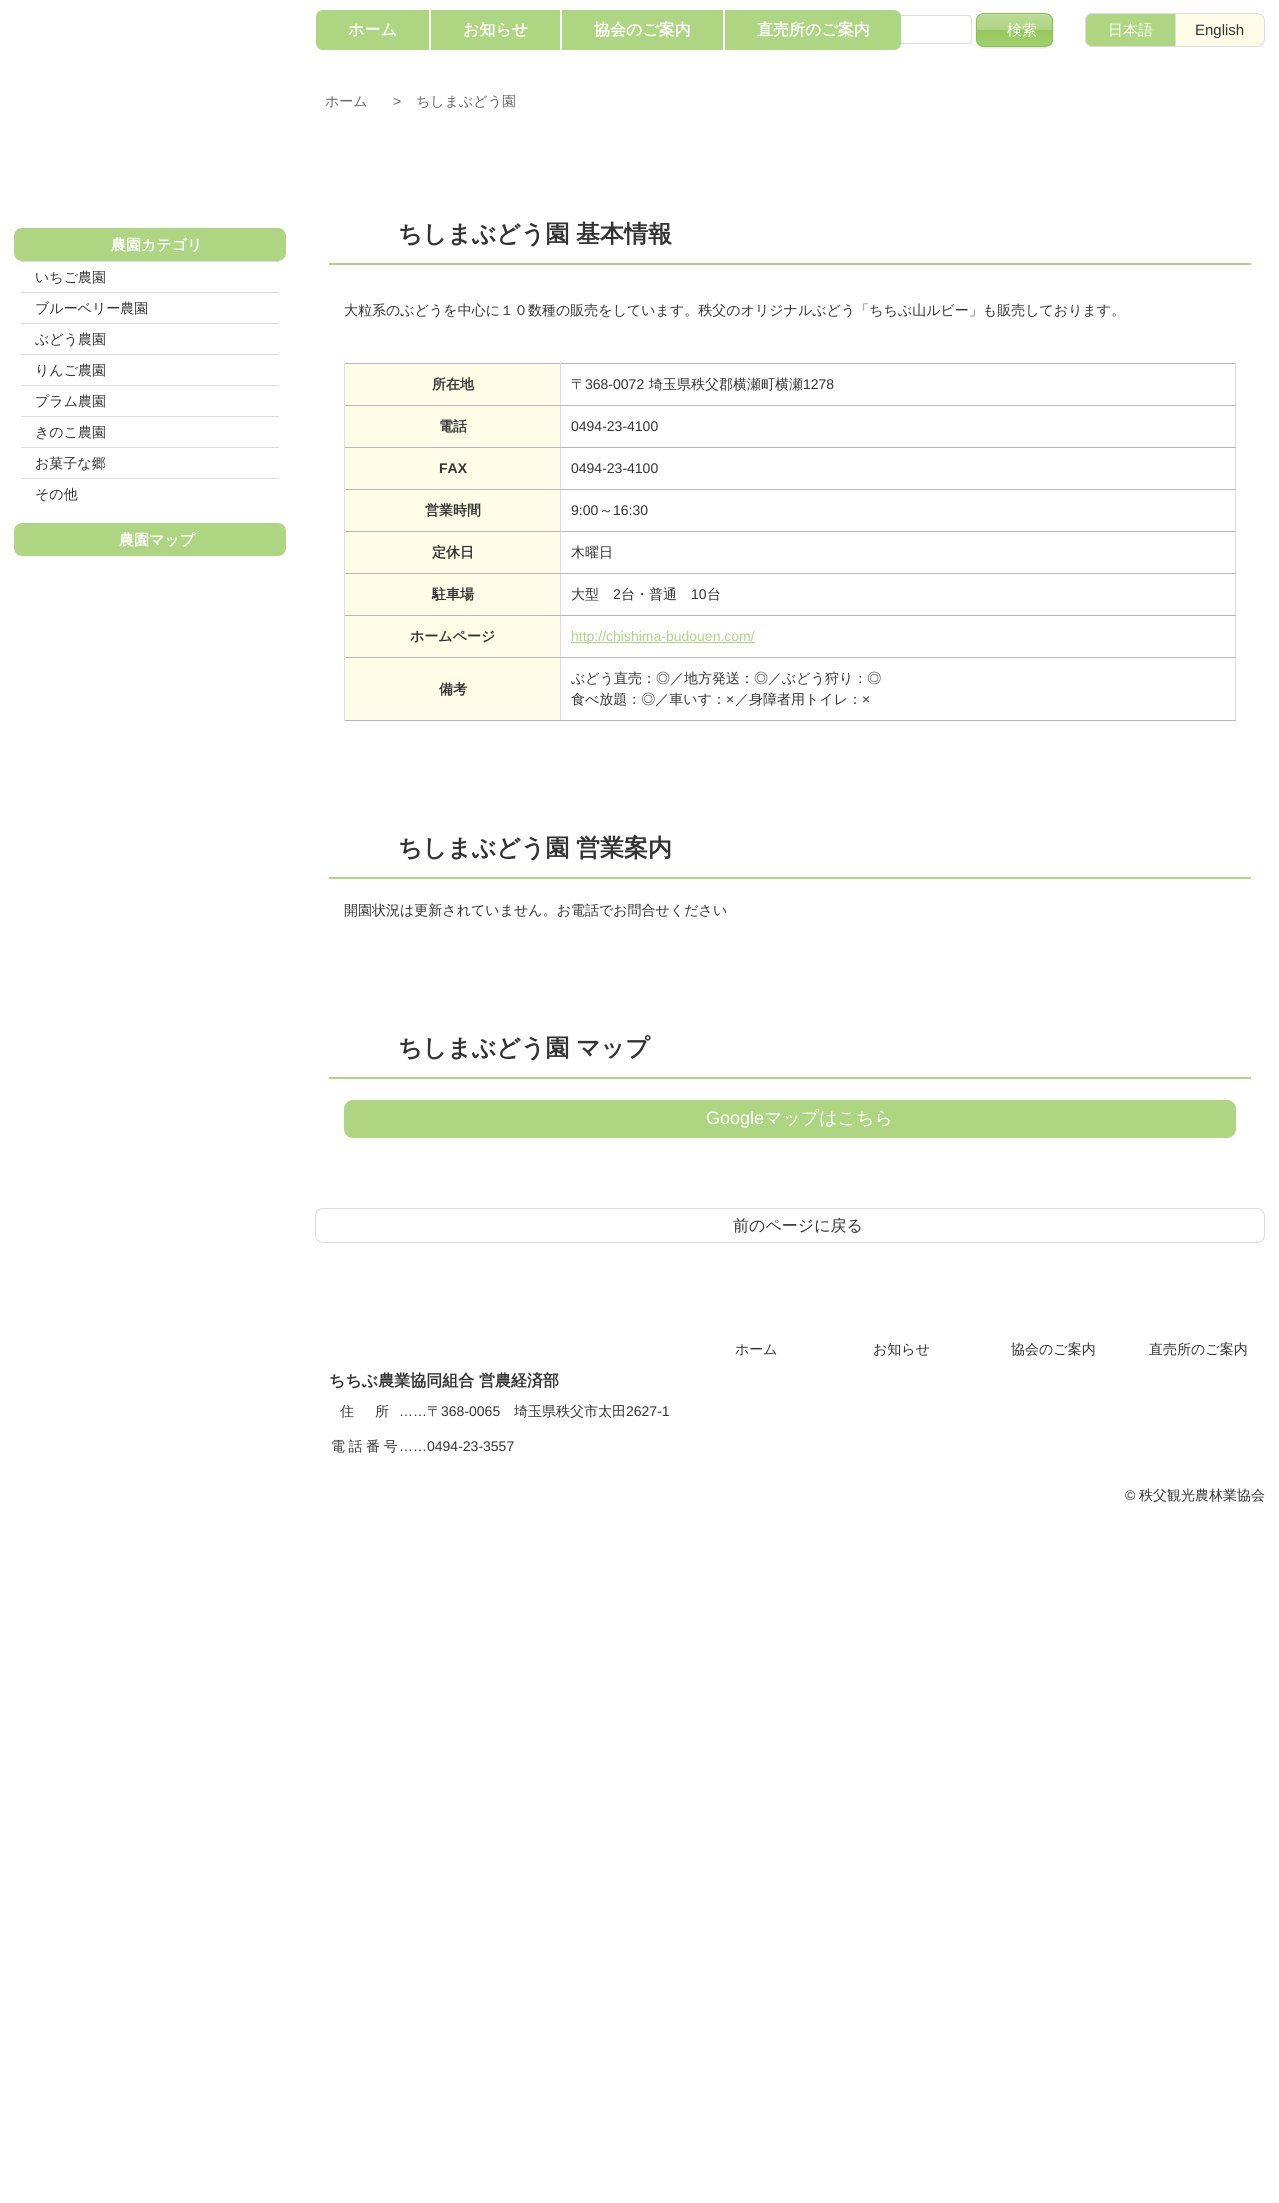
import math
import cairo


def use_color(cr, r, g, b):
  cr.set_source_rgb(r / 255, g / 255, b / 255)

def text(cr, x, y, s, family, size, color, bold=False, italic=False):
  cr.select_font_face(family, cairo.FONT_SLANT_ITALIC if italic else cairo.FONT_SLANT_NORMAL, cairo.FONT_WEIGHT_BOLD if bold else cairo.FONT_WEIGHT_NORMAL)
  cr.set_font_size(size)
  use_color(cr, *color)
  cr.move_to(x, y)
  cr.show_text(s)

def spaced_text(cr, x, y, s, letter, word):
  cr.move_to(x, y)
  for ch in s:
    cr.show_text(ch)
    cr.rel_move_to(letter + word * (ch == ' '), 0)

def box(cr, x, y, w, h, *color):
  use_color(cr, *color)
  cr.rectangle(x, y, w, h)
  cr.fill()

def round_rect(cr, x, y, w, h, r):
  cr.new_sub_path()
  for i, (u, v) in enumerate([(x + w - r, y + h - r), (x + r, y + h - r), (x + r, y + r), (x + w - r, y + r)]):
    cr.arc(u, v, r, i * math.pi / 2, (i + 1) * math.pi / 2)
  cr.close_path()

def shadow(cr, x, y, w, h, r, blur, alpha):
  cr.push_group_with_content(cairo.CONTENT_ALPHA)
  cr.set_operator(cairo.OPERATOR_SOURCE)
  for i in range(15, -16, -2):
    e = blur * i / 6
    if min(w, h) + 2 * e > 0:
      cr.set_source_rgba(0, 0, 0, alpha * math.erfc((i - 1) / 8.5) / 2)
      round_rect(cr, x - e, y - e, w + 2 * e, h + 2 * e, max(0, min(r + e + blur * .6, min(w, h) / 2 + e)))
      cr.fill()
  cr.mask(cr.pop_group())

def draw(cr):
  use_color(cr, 255, 255, 255)
  cr.paint()
  use_color(cr, 174, 213, 129)
  cr.new_path()
  cr.move_to(323, 10)
  cr.line_to(429, 10)
  cr.line_to(429, 50)
  cr.line_to(323, 50)
  cr.curve_to(319, 50, 316, 47, 316, 43)
  cr.line_to(316, 17)
  cr.curve_to(316, 13, 319, 10, 323, 10)
  cr.close_path()
  cr.fill()
  box(cr, 431, 10, 129, 40, 174, 213, 129)
  box(cr, 562, 10, 161, 40, 174, 213, 129)
  round_rect(cr, 804.5, 15.5, 167, 28, 3.5)
  use_color(cr, 221, 221, 221)
  cr.set_line_width(1)
  cr.stroke()
  use_color(cr, 174, 213, 129)
  cr.new_path()
  cr.move_to(725, 10)
  cr.line_to(894, 10)
  cr.curve_to(898, 10, 901, 13, 901, 17)
  cr.line_to(901, 43)
  cr.curve_to(901, 47, 898, 50, 894, 50)
  cr.line_to(725, 50)
  cr.close_path()
  cr.fill()
  use_color(cr, 51, 51, 51)
  shadow(cr, 976, 14, 77, 34, 8, 1, 0.15)
  cr.save()
  round_rect(cr, 976, 13, 77, 34, 8)
  cr.clip()
  gradient = cairo.LinearGradient(1015, 14, 1015, 46)
  gradient.add_color_stop_rgba(0, 0.729, 0.859, 0.58, 1)
  gradient.add_color_stop_rgba(0.5, 0.682, 0.835, 0.506, 1)
  gradient.add_color_stop_rgba(0.5, 0.584, 0.784, 0.357, 1)
  gradient.add_color_stop_rgba(1, 0.635, 0.812, 0.431, 1)
  cr.set_source(gradient)
  cr.rectangle(976, 14, 77, 32)
  cr.fill()
  cr.restore()
  cr.set_source_rgba(1, 1, 1, 0.1)
  cr.new_path()
  cr.move_to(984, 15)
  cr.line_to(1046, 15)
  cr.curve_to(1049, 15, 1052, 18, 1052, 22)
  cr.curve_to(1052, 12, 1042, 14, 1035, 14)
  cr.line_to(994, 14)
  cr.curve_to(987, 14, 977, 12, 977, 22)
  cr.curve_to(977, 18, 980, 15, 984, 15)
  cr.close_path()
  cr.fill()
  round_rect(cr, 976.5, 13.5, 76, 33, 7.5)
  use_color(cr, 137, 194, 72)
  cr.stroke()
  use_color(cr, 174, 213, 129)
  cr.new_path()
  cr.move_to(1093, 13)
  cr.line_to(1175, 13)
  cr.line_to(1175, 47)
  cr.line_to(1093, 47)
  cr.curve_to(1088.5, 47, 1085, 43.5, 1085, 39)
  cr.line_to(1085, 21)
  cr.curve_to(1085, 16.5, 1088.5, 13, 1093, 13)
  cr.close_path()
  cr.fill()
  use_color(cr, 221, 221, 221)
  cr.set_fill_rule(cairo.FILL_RULE_EVEN_ODD)
  cr.new_path()
  cr.move_to(1092, 13)
  cr.line_to(1175, 13)
  cr.line_to(1175, 47)
  cr.line_to(1092, 47)
  cr.curve_to(1088, 47, 1085, 44, 1085, 40)
  cr.line_to(1085, 20)
  cr.curve_to(1085, 16, 1088, 13, 1092, 13)
  cr.close_path()
  cr.move_to(1092, 14)
  cr.line_to(1175, 14)
  cr.line_to(1175, 46)
  cr.line_to(1092, 46)
  cr.curve_to(1089, 46, 1086, 43, 1086, 40)
  cr.line_to(1086, 20)
  cr.curve_to(1086, 17, 1089, 14, 1092, 14)
  cr.close_path()
  cr.fill()
  use_color(cr, 255, 253, 231)
  cr.new_path()
  cr.move_to(1175.5, 13.5)
  cr.line_to(1257, 13.5)
  cr.curve_to(1261, 13.5, 1264.5, 17, 1264.5, 21)
  cr.line_to(1264.5, 39)
  cr.curve_to(1264.5, 43, 1261, 46.5, 1257, 46.5)
  cr.line_to(1175.5, 46.5)
  cr.close_path()
  cr.fill_preserve()
  use_color(cr, 221, 221, 221)
  cr.stroke()
  use_color(cr, 174, 213, 129)
  round_rect(cr, 14, 228, 272, 33, 8)
  cr.fill()
  box(cr, 21, 261, 258, 1, 221, 221, 221)
  box(cr, 21, 292, 258, 1, 221, 221, 221)
  box(cr, 21, 323, 258, 1, 221, 221, 221)
  box(cr, 21, 354, 258, 1, 221, 221, 221)
  box(cr, 21, 385, 258, 1, 221, 221, 221)
  box(cr, 21, 416, 258, 1, 221, 221, 221)
  box(cr, 21, 447, 258, 1, 221, 221, 221)
  box(cr, 21, 478, 258, 1, 221, 221, 221)
  use_color(cr, 174, 213, 129)
  round_rect(cr, 14, 523, 272, 33, 8)
  cr.fill()
  box(cr, 329, 263, 922, 2, 174, 213, 129)
  box(cr, 345, 364, 215, 41, 255, 253, 231)
  box(cr, 344, 363, 892, 1, 183, 183, 183)
  box(cr, 1235, 405, 1, 316, 221, 221, 221)
  box(cr, 1235, 363, 1, 43, 221, 221, 221)
  box(cr, 560, 720, 676, 1, 183, 183, 183)
  box(cr, 560, 657, 1, 64, 221, 221, 221)
  box(cr, 560, 657, 676, 1, 183, 183, 183)
  box(cr, 560, 615, 1, 43, 221, 221, 221)
  box(cr, 560, 615, 676, 1, 183, 183, 183)
  box(cr, 560, 573, 1, 43, 221, 221, 221)
  box(cr, 560, 573, 676, 1, 183, 183, 183)
  box(cr, 560, 531, 1, 43, 221, 221, 221)
  box(cr, 560, 531, 676, 1, 183, 183, 183)
  box(cr, 560, 489, 1, 43, 221, 221, 221)
  box(cr, 560, 489, 676, 1, 183, 183, 183)
  box(cr, 560, 447, 1, 43, 221, 221, 221)
  box(cr, 560, 447, 676, 1, 183, 183, 183)
  box(cr, 560, 405, 1, 43, 221, 221, 221)
  box(cr, 560, 405, 676, 1, 183, 183, 183)
  box(cr, 560, 363, 1, 43, 221, 221, 221)
  box(cr, 344, 720, 217, 1, 183, 183, 183)
  box(cr, 344, 657, 1, 64, 221, 221, 221)
  box(cr, 344, 657, 217, 1, 183, 183, 183)
  box(cr, 344, 615, 1, 43, 221, 221, 221)
  box(cr, 344, 615, 217, 1, 183, 183, 183)
  box(cr, 344, 573, 1, 43, 221, 221, 221)
  box(cr, 344, 573, 217, 1, 183, 183, 183)
  box(cr, 344, 531, 1, 43, 221, 221, 221)
  box(cr, 344, 531, 217, 1, 183, 183, 183)
  box(cr, 344, 489, 1, 43, 221, 221, 221)
  box(cr, 344, 489, 217, 1, 183, 183, 183)
  box(cr, 344, 447, 1, 43, 221, 221, 221)
  box(cr, 344, 447, 217, 1, 183, 183, 183)
  box(cr, 344, 405, 1, 43, 221, 221, 221)
  box(cr, 344, 405, 217, 1, 183, 183, 183)
  box(cr, 344, 363, 1, 43, 221, 221, 221)
  box(cr, 345, 406, 215, 41, 255, 253, 231)
  box(cr, 345, 448, 215, 41, 255, 253, 231)
  box(cr, 345, 490, 215, 41, 255, 253, 231)
  box(cr, 345, 532, 215, 41, 255, 253, 231)
  box(cr, 345, 574, 215, 41, 255, 253, 231)
  box(cr, 345, 616, 215, 41, 255, 253, 231)
  box(cr, 571, 642, 184, 1, 174, 213, 129)
  box(cr, 345, 658, 215, 62, 255, 253, 231)
  box(cr, 329, 877, 922, 2, 174, 213, 129)
  box(cr, 329, 1077, 922, 2, 174, 213, 129)
  round_rect(cr, 344, 1100, 892, 38, 9)
  cr.fill()
  round_rect(cr, 315.5, 1208.5, 949, 34, 7.5)
  use_color(cr, 221, 221, 221)
  cr.stroke()
  text(cr, 348, 35, "ホーム", "WenQuanYi Zen Hei", 16, (255, 255, 255), bold=True)
  text(cr, 463, 35, "お知らせ", "WenQuanYi Zen Hei", 16, (255, 255, 255), bold=True)
  text(cr, 594, 35, "協会のご案内", "WenQuanYi Zen Hei", 16, (255, 255, 255), bold=True)
  text(cr, 757, 35, "直売所のご案内", "WenQuanYi Zen Hei", 16, (255, 255, 255), bold=True)
  text(cr, 1007, 35, "検索", "WenQuanYi Zen Hei Medium", 15, (255, 255, 255))
  text(cr, 1108, 35, "日本語", "WenQuanYi Zen Hei Medium", 15, (255, 255, 255))
  text(cr, 1195, 35, "English", "Liberation Sans", 15, (51, 51, 51))
  text(cr, 325, 106, "ホーム", "WenQuanYi Zen Hei Medium", 14, (102, 102, 102))
  text(cr, 393, 106, ">", "Liberation Sans", 14, (102, 102, 102))
  text(cr, 416, 106, "ちしまぶどう園", "WenQuanYi Zen Hei Medium", 14, (102, 102, 102))
  text(cr, 111, 250, "農園カテゴリ", "WenQuanYi Zen Hei", 15, (255, 255, 255), bold=True)
  text(cr, 35, 282, "いちご農園", "WenQuanYi Zen Hei Medium", 14, (51, 51, 51))
  text(cr, 35, 313, "ブルーベリー農園", "WenQuanYi Zen Hei Medium", 14, (51, 51, 51))
  text(cr, 35, 344, "ぶどう農園", "WenQuanYi Zen Hei Medium", 14, (51, 51, 51))
  text(cr, 35, 375, "りんご農園", "WenQuanYi Zen Hei Medium", 14, (51, 51, 51))
  text(cr, 35, 406, "プラム農園", "WenQuanYi Zen Hei Medium", 14, (51, 51, 51))
  text(cr, 35, 437, "きのこ農園", "WenQuanYi Zen Hei Medium", 14, (51, 51, 51))
  text(cr, 35, 468, "お菓子な郷", "WenQuanYi Zen Hei Medium", 14, (51, 51, 51))
  text(cr, 35, 499, "その他", "WenQuanYi Zen Hei Medium", 14, (51, 51, 51))
  text(cr, 119, 545, "農園マップ", "WenQuanYi Zen Hei", 15, (255, 255, 255), bold=True)
  text(cr, 398, 242, "ちしまぶどう園", "WenQuanYi Zen Hei", 24, (51, 51, 51), bold=True)
  text(cr, 576, 242, "基本情報", "WenQuanYi Zen Hei", 24, (51, 51, 51), bold=True)
  text(cr, 344, 315, "大粒系のぶどうを中心に１０数種の販売をしています。秩父のオリジナルぶどう「ちちぶ山ルビー」も販売しております。", "WenQuanYi Zen Hei Medium", 14, (51, 51, 51))
  text(cr, 432, 389, "所在地", "WenQuanYi Zen Hei", 14, (51, 51, 51), bold=True)
  text(cr, 571, 389, "〒", "WenQuanYi Zen Hei Medium", 14, (51, 51, 51))
  text(cr, 585, 389, "368-0072", "Liberation Sans", 14, (51, 51, 51))
  text(cr, 649, 389, "埼玉県秩父郡横瀬町横瀬", "WenQuanYi Zen Hei Medium", 14, (51, 51, 51))
  text(cr, 803, 389, "1278", "Liberation Sans", 14, (51, 51, 51))
  text(cr, 439, 431, "電話", "WenQuanYi Zen Hei", 14, (51, 51, 51), bold=True)
  text(cr, 571, 431, "0494-23-4100", "Liberation Sans", 14, (51, 51, 51))
  text(cr, 439, 473, "FAX", "Liberation Sans", 14, (51, 51, 51), bold=True)
  text(cr, 571, 473, "0494-23-4100", "Liberation Sans", 14, (51, 51, 51))
  text(cr, 425, 515, "営業時間", "WenQuanYi Zen Hei", 14, (51, 51, 51), bold=True)
  text(cr, 571, 515, "9:00", "Liberation Sans", 14, (51, 51, 51))
  text(cr, 599, 515, "～", "WenQuanYi Zen Hei Medium", 14, (51, 51, 51))
  text(cr, 613, 515, "16:30", "Liberation Sans", 14, (51, 51, 51))
  text(cr, 432, 557, "定休日", "WenQuanYi Zen Hei", 14, (51, 51, 51), bold=True)
  text(cr, 571, 557, "木曜日", "WenQuanYi Zen Hei Medium", 14, (51, 51, 51))
  text(cr, 432, 599, "駐車場", "WenQuanYi Zen Hei", 14, (51, 51, 51), bold=True)
  text(cr, 571, 599, "大型", "WenQuanYi Zen Hei Medium", 14, (51, 51, 51))
  text(cr, 613, 599, "2", "Liberation Sans", 14, (51, 51, 51))
  text(cr, 621, 599, "台・普通", "WenQuanYi Zen Hei Medium", 14, (51, 51, 51))
  text(cr, 691, 599, "10", "Liberation Sans", 14, (51, 51, 51))
  text(cr, 707, 599, "台", "WenQuanYi Zen Hei Medium", 14, (51, 51, 51))
  text(cr, 410, 641, "ホームページ", "WenQuanYi Zen Hei", 14, (51, 51, 51), bold=True)
  text(cr, 571, 641, "http://chishima-budouen.com/", "Liberation Sans", 14, (174, 213, 129))
  text(cr, 439, 694, "備考", "WenQuanYi Zen Hei", 14, (51, 51, 51), bold=True)
  text(cr, 571, 683, "ぶどう直売：◎／地方発送：◎／ぶどう狩り：◎", "WenQuanYi Zen Hei Medium", 14, (51, 51, 51))
  text(cr, 571, 704, "食べ放題：◎／車いす：", "WenQuanYi Zen Hei Medium", 14, (51, 51, 51))
  text(cr, 726, 704, "×", "Liberation Sans", 14, (51, 51, 51))
  text(cr, 735, 704, "／身障者用トイレ：", "WenQuanYi Zen Hei Medium", 14, (51, 51, 51))
  text(cr, 862, 704, "×", "Liberation Sans", 14, (51, 51, 51))
  text(cr, 398, 856, "ちしまぶどう園", "WenQuanYi Zen Hei", 24, (51, 51, 51), bold=True)
  text(cr, 576, 856, "営業案内", "WenQuanYi Zen Hei", 24, (51, 51, 51), bold=True)
  text(cr, 344, 915, "開園状況は更新されていません。お電話でお問合せください", "WenQuanYi Zen Hei Medium", 14, (51, 51, 51))
  text(cr, 398, 1056, "ちしまぶどう園", "WenQuanYi Zen Hei", 24, (51, 51, 51), bold=True)
  text(cr, 576, 1056, "マップ", "WenQuanYi Zen Hei", 24, (51, 51, 51), bold=True)
  text(cr, 706, 1124, "Google", "Liberation Sans", 18, (255, 255, 255))
  text(cr, 764, 1124, "マップはこちら", "WenQuanYi Zen Hei Medium", 18, (255, 255, 255))
  text(cr, 733, 1231, "前のページに戻る", "WenQuanYi Zen Hei Medium", 16, (51, 51, 51))
  text(cr, 735, 1354, "ホーム", "WenQuanYi Zen Hei Medium", 14, (51, 51, 51))
  text(cr, 873, 1354, "お知らせ", "WenQuanYi Zen Hei Medium", 14, (51, 51, 51))
  text(cr, 1011, 1354, "協会のご案内", "WenQuanYi Zen Hei Medium", 14, (51, 51, 51))
  text(cr, 1149, 1354, "直売所のご案内", "WenQuanYi Zen Hei Medium", 14, (51, 51, 51))
  text(cr, 329, 1386, "ちちぶ農業協同組合 営農経済部", "WenQuanYi Zen Hei", 16, (51, 51, 51), bold=True)
  cr.select_font_face("WenQuanYi Zen Hei Medium")
  cr.set_font_size(14)
  spaced_text(cr, 340, 1416, "住所", 21, 0)
  text(cr, 399, 1416, "……", "Liberation Sans", 14, (51, 51, 51))
  text(cr, 427, 1416, "〒", "WenQuanYi Zen Hei Medium", 14, (51, 51, 51))
  text(cr, 441, 1416, "368-0065", "Liberation Sans", 14, (51, 51, 51))
  text(cr, 514, 1416, "埼玉県秩父市太田", "WenQuanYi Zen Hei Medium", 14, (51, 51, 51))
  text(cr, 626, 1416, "2627-1", "Liberation Sans", 14, (51, 51, 51))
  cr.select_font_face("WenQuanYi Zen Hei Medium")
  spaced_text(cr, 331, 1451, "電話番号", 3.5, 0)
  text(cr, 399, 1451, "……0494-23-3557", "Liberation Sans", 14, (51, 51, 51))
  text(cr, 1125, 1500, "©", "Liberation Sans", 14, (51, 51, 51))
  text(cr, 1139, 1500, "秩父観光農林業協会", "WenQuanYi Zen Hei Medium", 14, (51, 51, 51))


surface = cairo.ImageSurface(cairo.FORMAT_RGB24, 1279, 2203)
cr = cairo.Context(surface)
options = cairo.FontOptions()
options.set_hint_metrics(cairo.HINT_METRICS_OFF)
options.set_hint_style(cairo.HINT_STYLE_NONE)
cr.set_font_options(options)
cr.set_miter_limit(4)
draw(cr)
surface.write_to_png("out.png")
